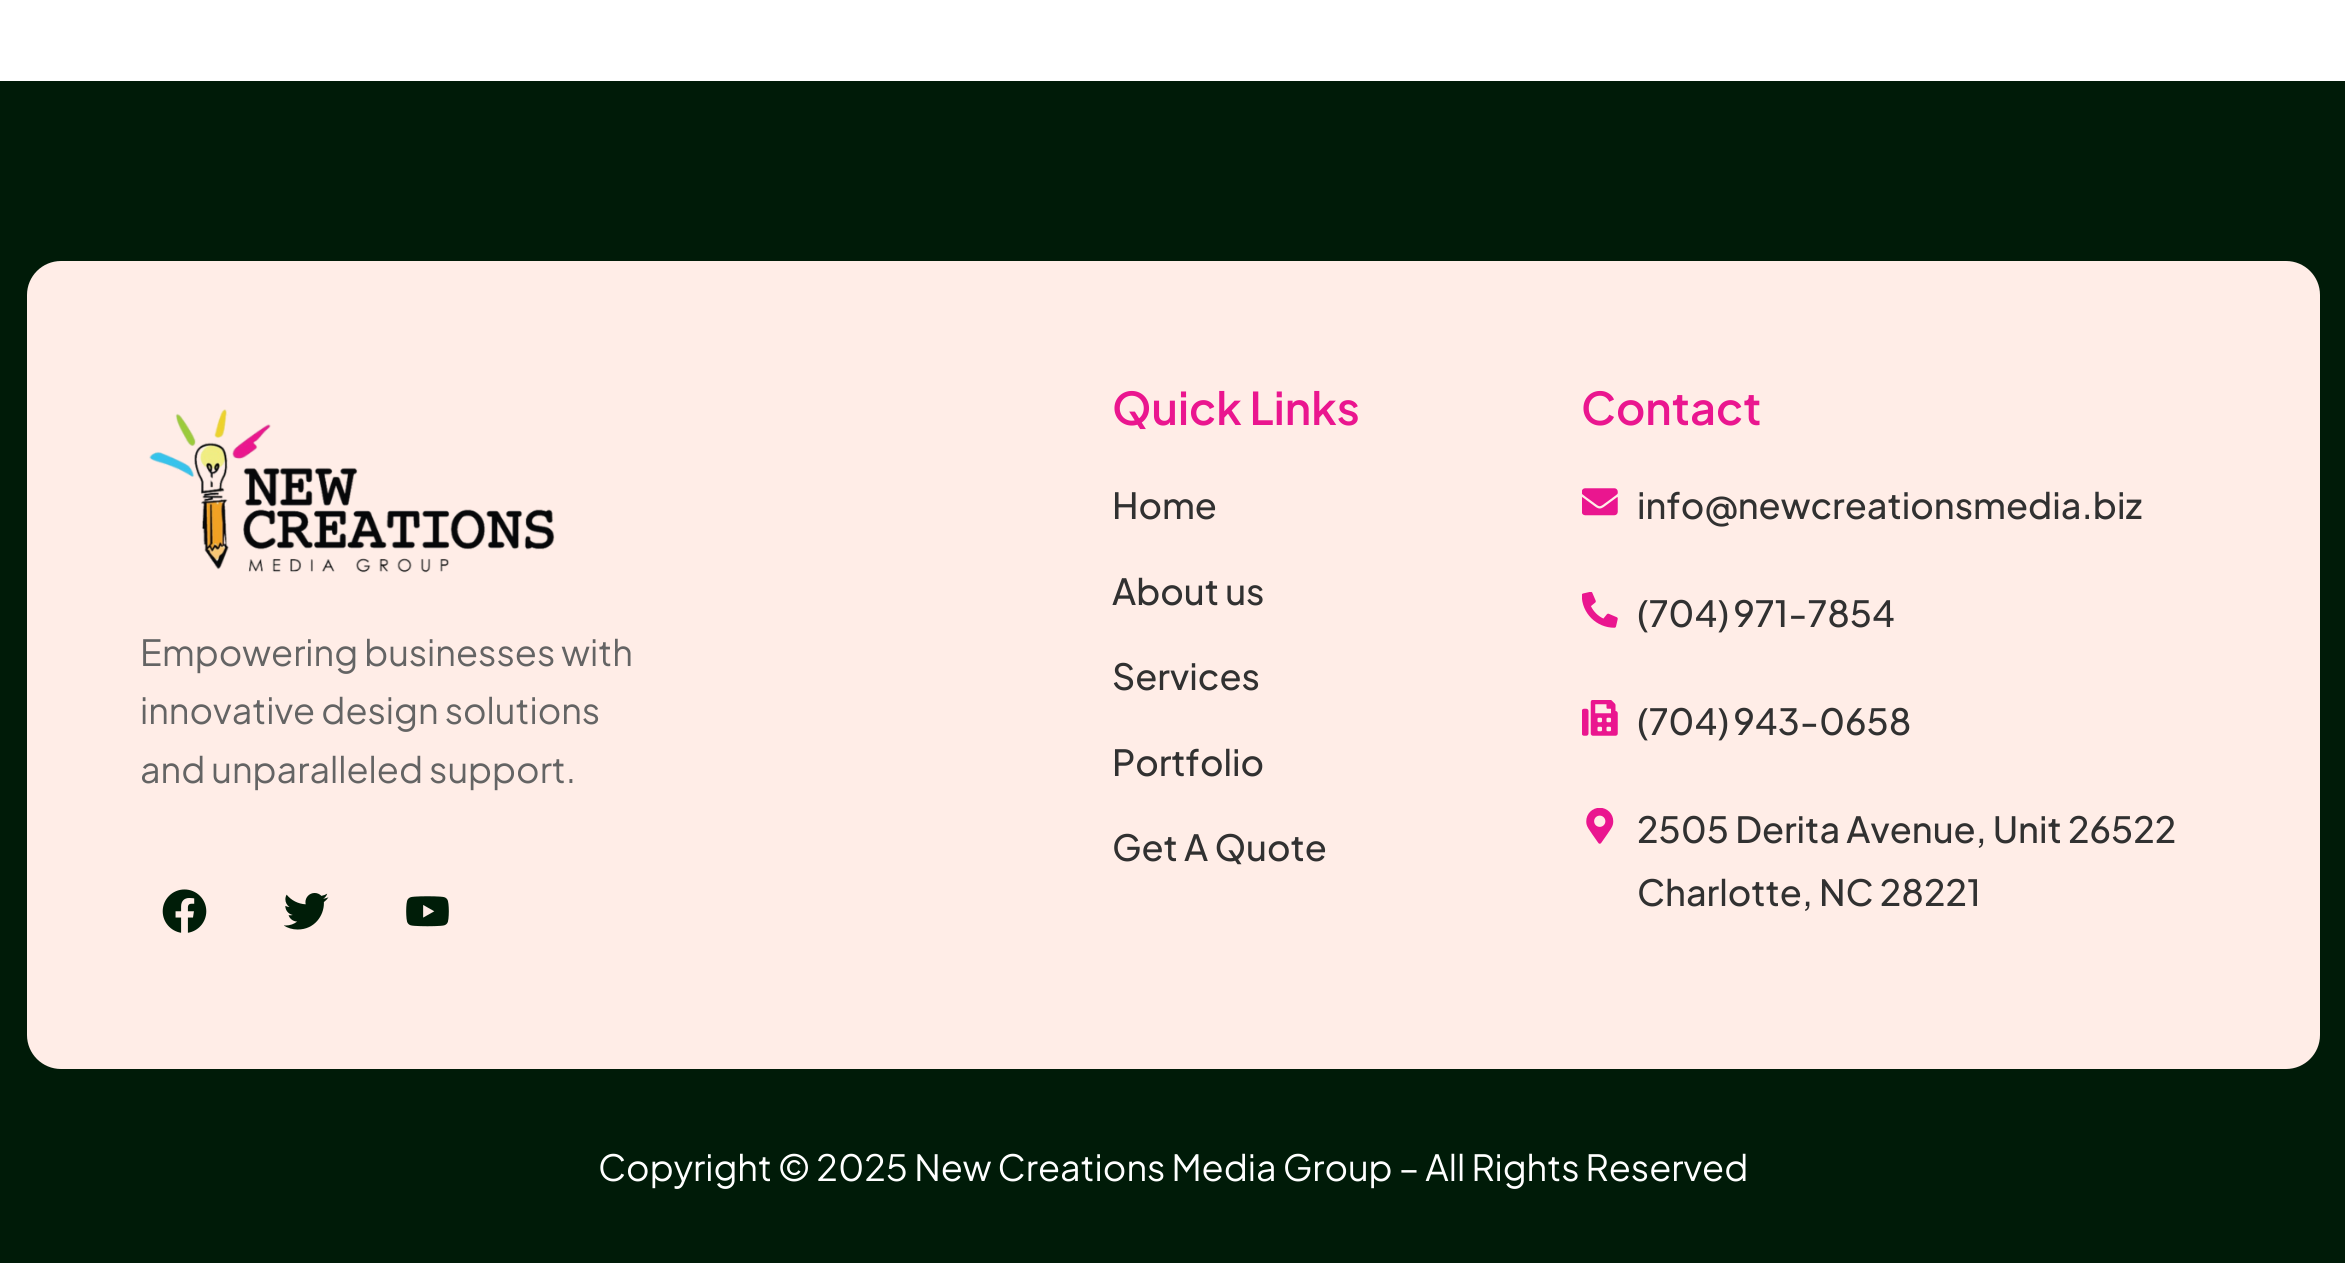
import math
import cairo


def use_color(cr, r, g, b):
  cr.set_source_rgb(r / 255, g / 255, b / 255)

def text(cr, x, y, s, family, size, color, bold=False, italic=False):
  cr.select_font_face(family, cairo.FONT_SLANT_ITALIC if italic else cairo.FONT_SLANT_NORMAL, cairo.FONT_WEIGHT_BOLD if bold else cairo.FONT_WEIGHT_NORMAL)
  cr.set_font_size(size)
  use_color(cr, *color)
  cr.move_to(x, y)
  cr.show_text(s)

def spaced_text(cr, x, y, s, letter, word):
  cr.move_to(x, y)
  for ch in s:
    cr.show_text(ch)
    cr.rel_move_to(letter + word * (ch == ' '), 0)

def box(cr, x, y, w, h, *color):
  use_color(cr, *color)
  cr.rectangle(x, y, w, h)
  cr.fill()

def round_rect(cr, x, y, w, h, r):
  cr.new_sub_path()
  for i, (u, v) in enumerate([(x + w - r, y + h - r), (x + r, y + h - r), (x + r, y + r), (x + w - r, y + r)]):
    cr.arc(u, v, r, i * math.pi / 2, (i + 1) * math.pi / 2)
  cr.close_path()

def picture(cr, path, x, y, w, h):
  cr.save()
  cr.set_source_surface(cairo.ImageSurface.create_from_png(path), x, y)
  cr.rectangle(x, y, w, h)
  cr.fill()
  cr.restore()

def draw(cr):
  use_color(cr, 255, 255, 255)
  cr.paint()
  box(cr, 0, 81, 2345, 1182, 0, 27, 8)
  use_color(cr, 255, 237, 231)
  round_rect(cr, 27, 261, 2293, 808, 34)
  cr.fill()
  picture(cr, "img_01.png", 149, 409, 406, 164)
  picture(cr, "img_02.png", 162, 889, 45, 44)
  picture(cr, "img_03.png", 284, 893, 45, 37)
  picture(cr, "img_04.png", 406, 896, 43, 31)
  picture(cr, "img_05.png", 1582, 488, 36, 28)
  picture(cr, "img_06.png", 1582, 592, 36, 36)
  picture(cr, "img_07.png", 1582, 700, 36, 36)
  picture(cr, "img_08.png", 1586, 808, 28, 36)
  text(cr, 140, 666, "Empowering businesses with", "Plus Jakarta Sans", 36, (100, 100, 100))
  text(cr, 140, 724, "innovative design solutions", "Plus Jakarta Sans", 36, (100, 100, 100))
  text(cr, 140, 783, "and unparalleled support.", "Plus Jakarta Sans", 36, (100, 100, 100))
  text(cr, 1112, 425, "Quick Links", "Plus Jakarta Sans SemiBold", 45, (234, 22, 143))
  text(cr, 1112, 519, "Home", "Plus Jakarta Sans Medium", 36, (49, 49, 49))
  text(cr, 1112, 605, "About us", "Plus Jakarta Sans Medium", 36, (49, 49, 49))
  text(cr, 1112, 690, "Services", "Plus Jakarta Sans Medium", 36, (49, 49, 49))
  text(cr, 1112, 776, "Portfolio", "Plus Jakarta Sans Medium", 36, (49, 49, 49))
  text(cr, 1112, 861, "Get A Quote", "Plus Jakarta Sans Medium", 36, (49, 49, 49))
  text(cr, 1581, 425, "Contact", "Plus Jakarta Sans SemiBold", 45, (234, 22, 143))
  text(cr, 1637, 519, "info@newcreationsmedia.biz", "Plus Jakarta Sans Medium", 36, (49, 49, 49))
  spaced_text(cr, 1637, 627, "(704) 971-7854", 0, -2)
  spaced_text(cr, 1637, 735, "(704) 943-0658", 0, -2)
  text(cr, 1637, 843, "2505 Derita Avenue, Unit 26522", "Plus Jakarta Sans Medium", 36, (49, 49, 49))
  text(cr, 1637, 906, "Charlotte, NC 28221", "Plus Jakarta Sans Medium", 36, (49, 49, 49))
  text(cr, 598, 1181, "Copyright © 2025 New Creations Media Group – All Rights Reserved", "Plus Jakarta Sans", 36, (255, 255, 255))


surface = cairo.ImageSurface(cairo.FORMAT_RGB24, 2345, 1263)
cr = cairo.Context(surface)
options = cairo.FontOptions()
options.set_hint_metrics(cairo.HINT_METRICS_OFF)
options.set_hint_style(cairo.HINT_STYLE_NONE)
cr.set_font_options(options)
cr.set_miter_limit(4)
draw(cr)
surface.write_to_png("out.png")
